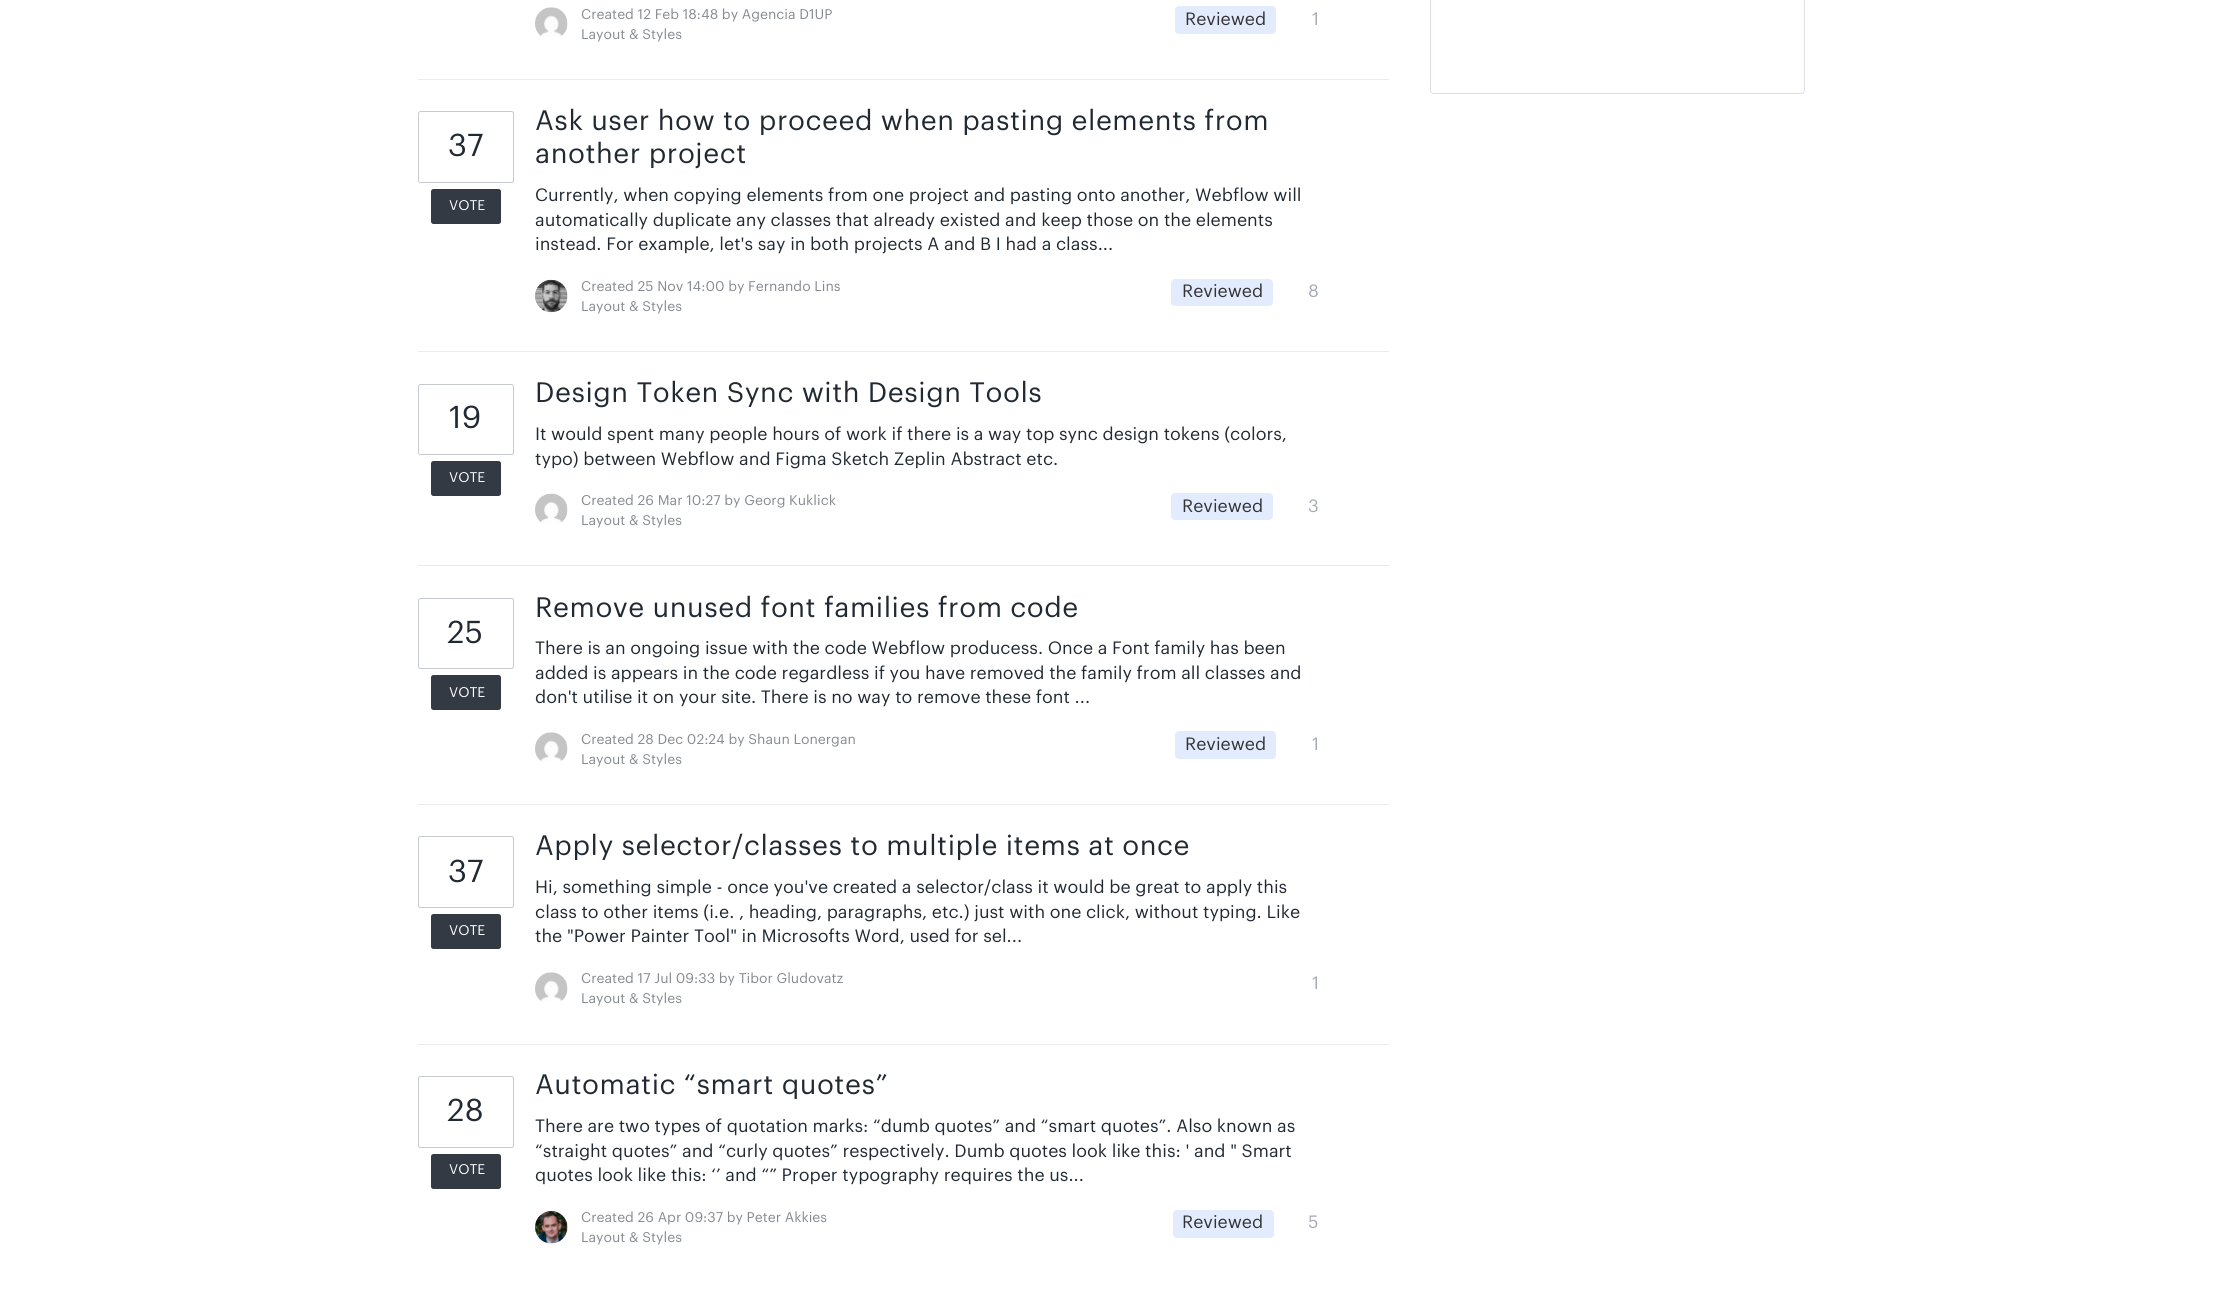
import math
import cairo


def use_color(cr, r, g, b):
  cr.set_source_rgb(r / 255, g / 255, b / 255)

def text(cr, x, y, s, family, size, color, bold=False, italic=False):
  cr.select_font_face(family, cairo.FONT_SLANT_ITALIC if italic else cairo.FONT_SLANT_NORMAL, cairo.FONT_WEIGHT_BOLD if bold else cairo.FONT_WEIGHT_NORMAL)
  cr.set_font_size(size)
  use_color(cr, *color)
  cr.move_to(x, y)
  cr.show_text(s)

def spaced_text(cr, x, y, s, letter, word):
  cr.move_to(x, y)
  for ch in s:
    cr.show_text(ch)
    cr.rel_move_to(letter + word * (ch == ' '), 0)

def box(cr, x, y, w, h, *color):
  use_color(cr, *color)
  cr.rectangle(x, y, w, h)
  cr.fill()

def round_rect(cr, x, y, w, h, r):
  cr.new_sub_path()
  for i, (u, v) in enumerate([(x + w - r, y + h - r), (x + r, y + h - r), (x + r, y + r), (x + w - r, y + r)]):
    cr.arc(u, v, r, i * math.pi / 2, (i + 1) * math.pi / 2)
  cr.close_path()

def picture(cr, path, x, y, w, h):
  cr.save()
  cr.set_source_surface(cairo.ImageSurface.create_from_png(path), x, y)
  cr.rectangle(x, y, w, h)
  cr.fill()
  cr.restore()

def draw(cr):
  use_color(cr, 255, 255, 255)
  cr.paint()
  box(cr, 418, 79, 971, 1, 233, 234, 237)
  picture(cr, "img_01.png", 535, 7, 33, 30)
  use_color(cr, 227, 236, 254)
  round_rect(cr, 1175, 6, 101, 28, 4)
  cr.fill()
  box(cr, 418, 351, 971, 1, 233, 234, 237)
  round_rect(cr, 418.5, 111.5, 95, 71, 2)
  use_color(cr, 199, 202, 210)
  cr.set_line_width(1)
  cr.stroke()
  use_color(cr, 51, 58, 67)
  round_rect(cr, 431, 189, 70, 35, 2.5)
  cr.fill()
  picture(cr, "img_02.png", 535, 279, 33, 34)
  use_color(cr, 227, 236, 254)
  round_rect(cr, 1171, 279, 102, 27, 4)
  cr.fill()
  box(cr, 418, 565, 971, 1, 233, 234, 237)
  round_rect(cr, 418.5, 384.5, 95, 70, 2)
  use_color(cr, 199, 202, 210)
  cr.stroke()
  use_color(cr, 51, 58, 67)
  round_rect(cr, 431, 461, 70, 35, 2.5)
  cr.fill()
  picture(cr, "img_03.png", 535, 493, 33, 31)
  use_color(cr, 227, 236, 254)
  round_rect(cr, 1171, 493, 102, 27, 4)
  cr.fill()
  box(cr, 418, 804, 971, 1, 233, 234, 237)
  round_rect(cr, 418.5, 598.5, 95, 70, 2)
  use_color(cr, 199, 202, 210)
  cr.stroke()
  use_color(cr, 51, 58, 67)
  round_rect(cr, 431, 675, 70, 35, 2.5)
  cr.fill()
  picture(cr, "img_01.png", 535, 732, 33, 30)
  use_color(cr, 227, 236, 254)
  round_rect(cr, 1175, 731, 101, 28, 4)
  cr.fill()
  box(cr, 418, 1044, 971, 1, 233, 234, 237)
  round_rect(cr, 418.5, 836.5, 95, 71, 2)
  use_color(cr, 199, 202, 210)
  cr.stroke()
  use_color(cr, 51, 58, 67)
  round_rect(cr, 431, 914, 70, 35, 2.5)
  cr.fill()
  picture(cr, "img_04.png", 535, 972, 33, 30)
  round_rect(cr, 418.5, 1076.5, 95, 71, 2)
  use_color(cr, 199, 202, 210)
  cr.stroke()
  use_color(cr, 51, 58, 67)
  round_rect(cr, 431, 1154, 70, 35, 2.5)
  cr.fill()
  picture(cr, "img_05.png", 535, 1211, 33, 33)
  use_color(cr, 227, 236, 254)
  round_rect(cr, 1173, 1210, 101, 28, 4)
  cr.fill()
  round_rect(cr, 1430.5, -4.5, 374, 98, 3.5)
  use_color(cr, 221, 223, 228)
  cr.stroke()
  text(cr, 581, 19, "Created 12 Feb 18:48 by Agencia D1UP", "Graphik", 13.75, (133, 138, 144))
  text(cr, 581, 39, "Layout & Styles", "Graphik", 13.75, (133, 138, 144))
  text(cr, 1185, 25, "Reviewed", "Graphik", 17.5, (51, 51, 51))
  text(cr, 1312, 25, "1", "Graphik", 17.5, (165, 170, 182))
  text(cr, 448, 156, "37", "Graphik", 31, (33, 41, 51))
  text(cr, 449, 210, "VOTE", "Graphik", 13.75, (255, 255, 255))
  cr.set_font_size(27.5)
  use_color(cr, 33, 41, 51)
  spaced_text(cr, 535, 130, "Ask user how to proceed when pasting elements from", 0.5, 0)
  spaced_text(cr, 535, 163, "another project", 0.5, 0)
  text(cr, 535, 201, "Currently, when copying elements from one project and pasting onto another, Webflow will", "Graphik", 17.5, (33, 41, 51))
  text(cr, 535, 226, "automatically duplicate any classes that already existed and keep those on the elements", "Graphik", 17.5, (33, 41, 51))
  text(cr, 535, 250, "instead. For example, let's say in both projects A and B I had a class...", "Graphik", 17.5, (33, 41, 51))
  text(cr, 581, 291, "Created 25 Nov 14:00 by Fernando Lins", "Graphik", 13.75, (133, 138, 144))
  text(cr, 581, 311, "Layout & Styles", "Graphik", 13.75, (133, 138, 144))
  text(cr, 1182, 297, "Reviewed", "Graphik", 17.5, (51, 51, 51))
  text(cr, 1308, 297, "8", "Graphik", 17.5, (165, 170, 182))
  text(cr, 449, 428, "19", "Graphik", 31, (33, 41, 51))
  text(cr, 449, 482, "VOTE", "Graphik", 13.75, (255, 255, 255))
  cr.set_font_size(27.5)
  use_color(cr, 33, 41, 51)
  spaced_text(cr, 535, 402, "Design Token Sync with Design Tools", 0.5, 0)
  text(cr, 535, 440, "It would spent many people hours of work if there is a way top sync design tokens (colors,", "Graphik", 17.5, (33, 41, 51))
  text(cr, 535, 465, "typo) between Webflow and Figma Sketch Zeplin Abstract etc.", "Graphik", 17.5, (33, 41, 51))
  text(cr, 581, 505, "Created 26 Mar 10:27 by Georg Kuklick", "Graphik", 13.75, (133, 138, 144))
  text(cr, 581, 525, "Layout & Styles", "Graphik", 13.75, (133, 138, 144))
  text(cr, 1182, 512, "Reviewed", "Graphik", 17.5, (51, 51, 51))
  text(cr, 1308, 512, "3", "Graphik", 17.5, (165, 170, 182))
  text(cr, 447, 643, "25", "Graphik", 31, (33, 41, 51))
  text(cr, 449, 697, "VOTE", "Graphik", 13.75, (255, 255, 255))
  cr.set_font_size(27.5)
  use_color(cr, 33, 41, 51)
  spaced_text(cr, 535, 617, "Remove unused font families from code", 0.5, 0)
  text(cr, 535, 654, "There is an ongoing issue with the code Webflow producess. Once a Font family has been", "Graphik", 17.5, (33, 41, 51))
  text(cr, 535, 679, "added is appears in the code regardless if you have removed the family from all classes and", "Graphik", 17.5, (33, 41, 51))
  text(cr, 535, 703, "don't utilise it on your site. There is no way to remove these font ...", "Graphik", 17.5, (33, 41, 51))
  text(cr, 581, 744, "Created 28 Dec 02:24 by Shaun Lonergan", "Graphik", 13.75, (133, 138, 144))
  text(cr, 581, 764, "Layout & Styles", "Graphik", 13.75, (133, 138, 144))
  text(cr, 1185, 750, "Reviewed", "Graphik", 17.5, (51, 51, 51))
  text(cr, 1312, 750, "1", "Graphik", 17.5, (165, 170, 182))
  text(cr, 448, 882, "37", "Graphik", 31, (33, 41, 51))
  text(cr, 449, 935, "VOTE", "Graphik", 13.75, (255, 255, 255))
  cr.set_font_size(27.5)
  use_color(cr, 33, 41, 51)
  spaced_text(cr, 535, 855, "Apply selector/classes to multiple items at once", 0.5, 0)
  text(cr, 535, 893, "Hi, something simple - once you've created a selector/class it would be great to apply this", "Graphik", 17.5, (33, 41, 51))
  text(cr, 535, 918, "class to other items (i.e. , heading, paragraphs, etc.) just with one click, without typing. Like", "Graphik", 17.5, (33, 41, 51))
  text(cr, 535, 942, "the \"Power Painter Tool\" in Microsofts Word, used for sel...", "Graphik", 17.5, (33, 41, 51))
  text(cr, 581, 983, "Created 17 Jul 09:33 by Tibor Gludovatz", "Graphik", 13.75, (133, 138, 144))
  text(cr, 581, 1003, "Layout & Styles", "Graphik", 13.75, (133, 138, 144))
  text(cr, 1312, 989, "1", "Graphik", 17.5, (165, 170, 182))
  text(cr, 447, 1121, "28", "Graphik", 31, (33, 41, 51))
  text(cr, 449, 1174, "VOTE", "Graphik", 13.75, (255, 255, 255))
  cr.set_font_size(27.5)
  use_color(cr, 33, 41, 51)
  spaced_text(cr, 535, 1094, "Automatic “smart quotes”", 0.5, 0)
  text(cr, 535, 1132, "There are two types of quotation marks: “dumb quotes” and “smart quotes”. Also known as", "Graphik", 17.5, (33, 41, 51))
  text(cr, 535, 1157, "“straight quotes” and “curly quotes” respectively. Dumb quotes look like this: ' and \" Smart", "Graphik", 17.5, (33, 41, 51))
  text(cr, 535, 1181, "quotes look like this: ‘’ and “” Proper typography requires the us...", "Graphik", 17.5, (33, 41, 51))
  text(cr, 581, 1222, "Created 26 Apr 09:37 by Peter Akkies", "Graphik", 13.75, (133, 138, 144))
  text(cr, 581, 1242, "Layout & Styles", "Graphik", 13.75, (133, 138, 144))
  text(cr, 1182, 1228, "Reviewed", "Graphik", 17.5, (51, 51, 51))
  text(cr, 1308, 1228, "5", "Graphik", 17.5, (165, 170, 182))


surface = cairo.ImageSurface(cairo.FORMAT_RGB24, 2222, 1302)
cr = cairo.Context(surface)
options = cairo.FontOptions()
options.set_hint_metrics(cairo.HINT_METRICS_OFF)
options.set_hint_style(cairo.HINT_STYLE_NONE)
cr.set_font_options(options)
cr.set_miter_limit(4)
draw(cr)
surface.write_to_png("out.png")
